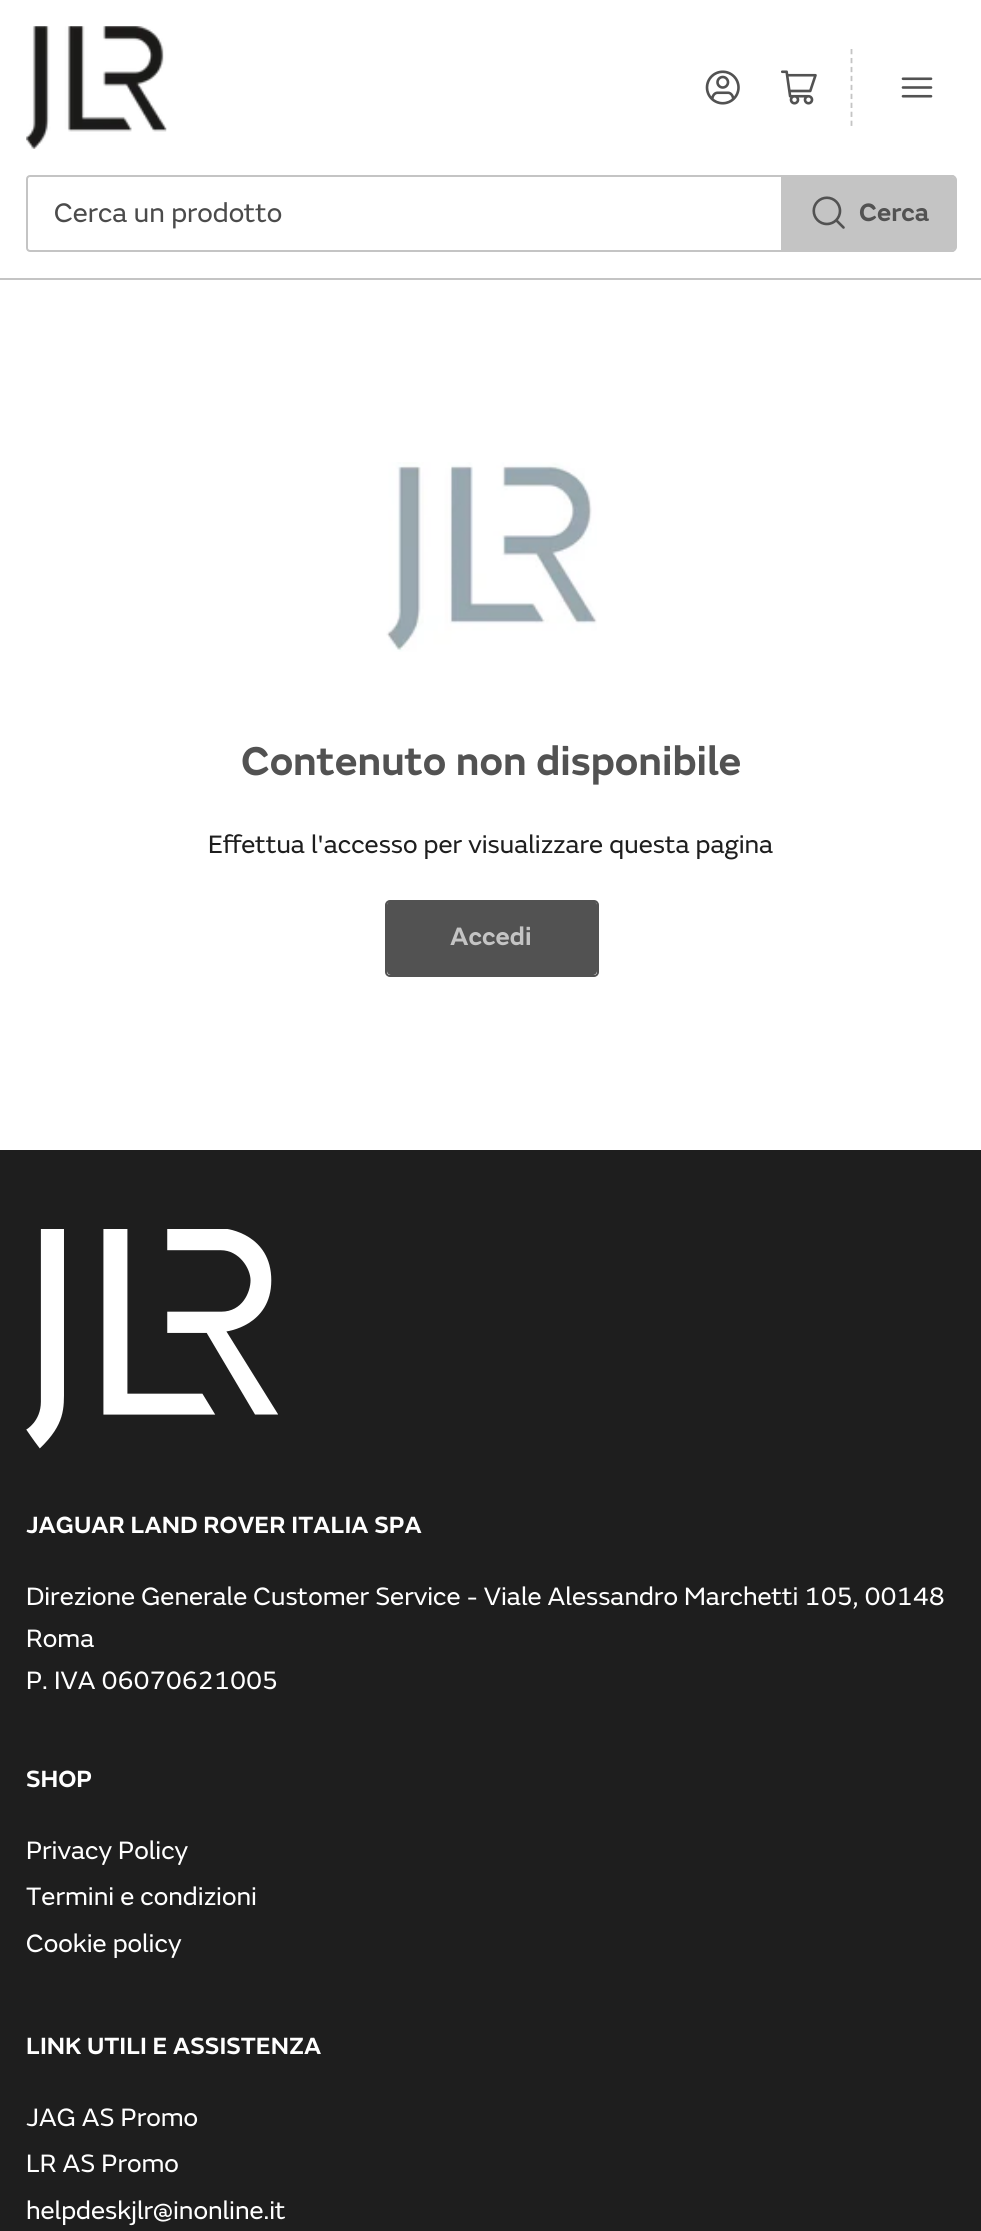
import math
import cairo


def use_color(cr, r, g, b):
  cr.set_source_rgb(r / 255, g / 255, b / 255)

def text(cr, x, y, s, family, size, color, bold=False, italic=False):
  cr.select_font_face(family, cairo.FONT_SLANT_ITALIC if italic else cairo.FONT_SLANT_NORMAL, cairo.FONT_WEIGHT_BOLD if bold else cairo.FONT_WEIGHT_NORMAL)
  cr.set_font_size(size)
  use_color(cr, *color)
  cr.move_to(x, y)
  cr.show_text(s)

def box(cr, x, y, w, h, *color):
  use_color(cr, *color)
  cr.rectangle(x, y, w, h)
  cr.fill()

def round_rect(cr, x, y, w, h, r):
  cr.new_sub_path()
  for i, (u, v) in enumerate([(x + w - r, y + h - r), (x + r, y + h - r), (x + r, y + r), (x + w - r, y + r)]):
    cr.arc(u, v, r, i * math.pi / 2, (i + 1) * math.pi / 2)
  cr.close_path()

def picture(cr, path, x, y, w, h):
  cr.save()
  cr.set_source_surface(cairo.ImageSurface.create_from_png(path), x, y)
  cr.rectangle(x, y, w, h)
  cr.fill()
  cr.restore()

def draw(cr):
  use_color(cr, 255, 255, 255)
  cr.paint()
  box(cr, 0, 278, 981, 2, 196, 196, 196)
  picture(cr, "img_01.png", 26, 26, 141, 123)
  picture(cr, "img_02.png", 705, 70, 35, 35)
  picture(cr, "img_03.png", 781, 70, 36, 35)
  cr.new_path()
  cr.move_to(851.5, 49)
  cr.line_to(851.5, 126)
  cr.set_line_width(1.8)
  cr.set_dash([5.25, 3.71])
  cr.stroke()
  picture(cr, "img_04.png", 901, 77, 32, 21)
  round_rect(cr, 27, 176, 928, 75, 3)
  cr.set_line_width(2)
  cr.set_dash([])
  cr.stroke()
  cr.new_path()
  cr.move_to(782, 176)
  cr.line_to(952, 176)
  cr.curve_to(954, 176, 956, 178, 956, 180)
  cr.line_to(956, 247)
  cr.curve_to(956, 249, 954, 251, 952, 251)
  cr.line_to(782, 251)
  cr.close_path()
  cr.stroke()
  cr.new_path()
  cr.move_to(782, 177)
  cr.line_to(952, 177)
  cr.curve_to(954, 177, 956, 179, 956, 181)
  cr.line_to(956, 246)
  cr.curve_to(956, 248, 954, 250, 952, 250)
  cr.line_to(782, 250)
  cr.close_path()
  cr.fill()
  picture(cr, "img_05.png", 812, 196, 33, 33)
  picture(cr, "img_06.png", 386, 462, 211, 190)
  round_rect(cr, 386, 901, 212, 75, 4)
  use_color(cr, 82, 82, 82)
  cr.stroke()
  round_rect(cr, 387, 901, 210, 74, 4)
  cr.fill()
  box(cr, 0, 1150, 981, 1081, 30, 30, 30)
  picture(cr, "img_07.png", 26, 1229, 252, 220)
  text(cr, 54, 222, "Cerca un prodotto", "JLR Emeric", 28, (75, 75, 75))
  text(cr, 859, 221, "Cerca", "JLR Emeric SemiBold", 26.25, (82, 82, 82))
  text(cr, 241, 775, "Contenuto non disponibile", "JLR Emeric SemiBold", 42, (82, 82, 82))
  text(cr, 208, 853, "Effettua l'accesso per visualizzare questa pagina", "JLR Emeric", 26.25, (30, 30, 30))
  text(cr, 450, 945, "Accedi", "JLR Emeric SemiBold", 26.25, (196, 196, 196))
  text(cr, 26, 1533, "JAGUAR LAND ROVER ITALIA SPA", "JLR Emeric SemiBold", 24.5, (255, 255, 255))
  text(cr, 26, 1605, "Direzione Generale Customer Service - Viale Alessandro Marchetti 105, 00148", "JLR Emeric", 26.25, (255, 255, 255))
  text(cr, 26, 1647, "Roma", "JLR Emeric", 26.25, (255, 255, 255))
  text(cr, 26, 1689, "P. IVA 06070621005", "JLR Emeric", 26.25, (255, 255, 255))
  text(cr, 26, 1787, "SHOP", "JLR Emeric SemiBold", 24.5, (255, 255, 255))
  text(cr, 26, 1859, "Privacy Policy", "JLR Emeric", 26.25, (255, 255, 255))
  text(cr, 26, 1905, "Termini e condizioni", "JLR Emeric", 26.25, (255, 255, 255))
  text(cr, 26, 1952, "Cookie policy", "JLR Emeric", 26.25, (255, 255, 255))
  text(cr, 26, 2054, "LINK UTILI E ASSISTENZA", "JLR Emeric SemiBold", 24.5, (255, 255, 255))
  text(cr, 26, 2126, "JAG AS Promo", "JLR Emeric", 26.25, (255, 255, 255))
  text(cr, 26, 2172, "LR AS Promo", "JLR Emeric", 26.25, (255, 255, 255))
  text(cr, 26, 2219, "helpdeskjlr@inonline.it", "JLR Emeric", 26.25, (255, 255, 255))


surface = cairo.ImageSurface(cairo.FORMAT_RGB24, 981, 2231)
cr = cairo.Context(surface)
options = cairo.FontOptions()
options.set_hint_metrics(cairo.HINT_METRICS_OFF)
options.set_hint_style(cairo.HINT_STYLE_NONE)
cr.set_font_options(options)
cr.set_miter_limit(4)
draw(cr)
surface.write_to_png("out.png")
